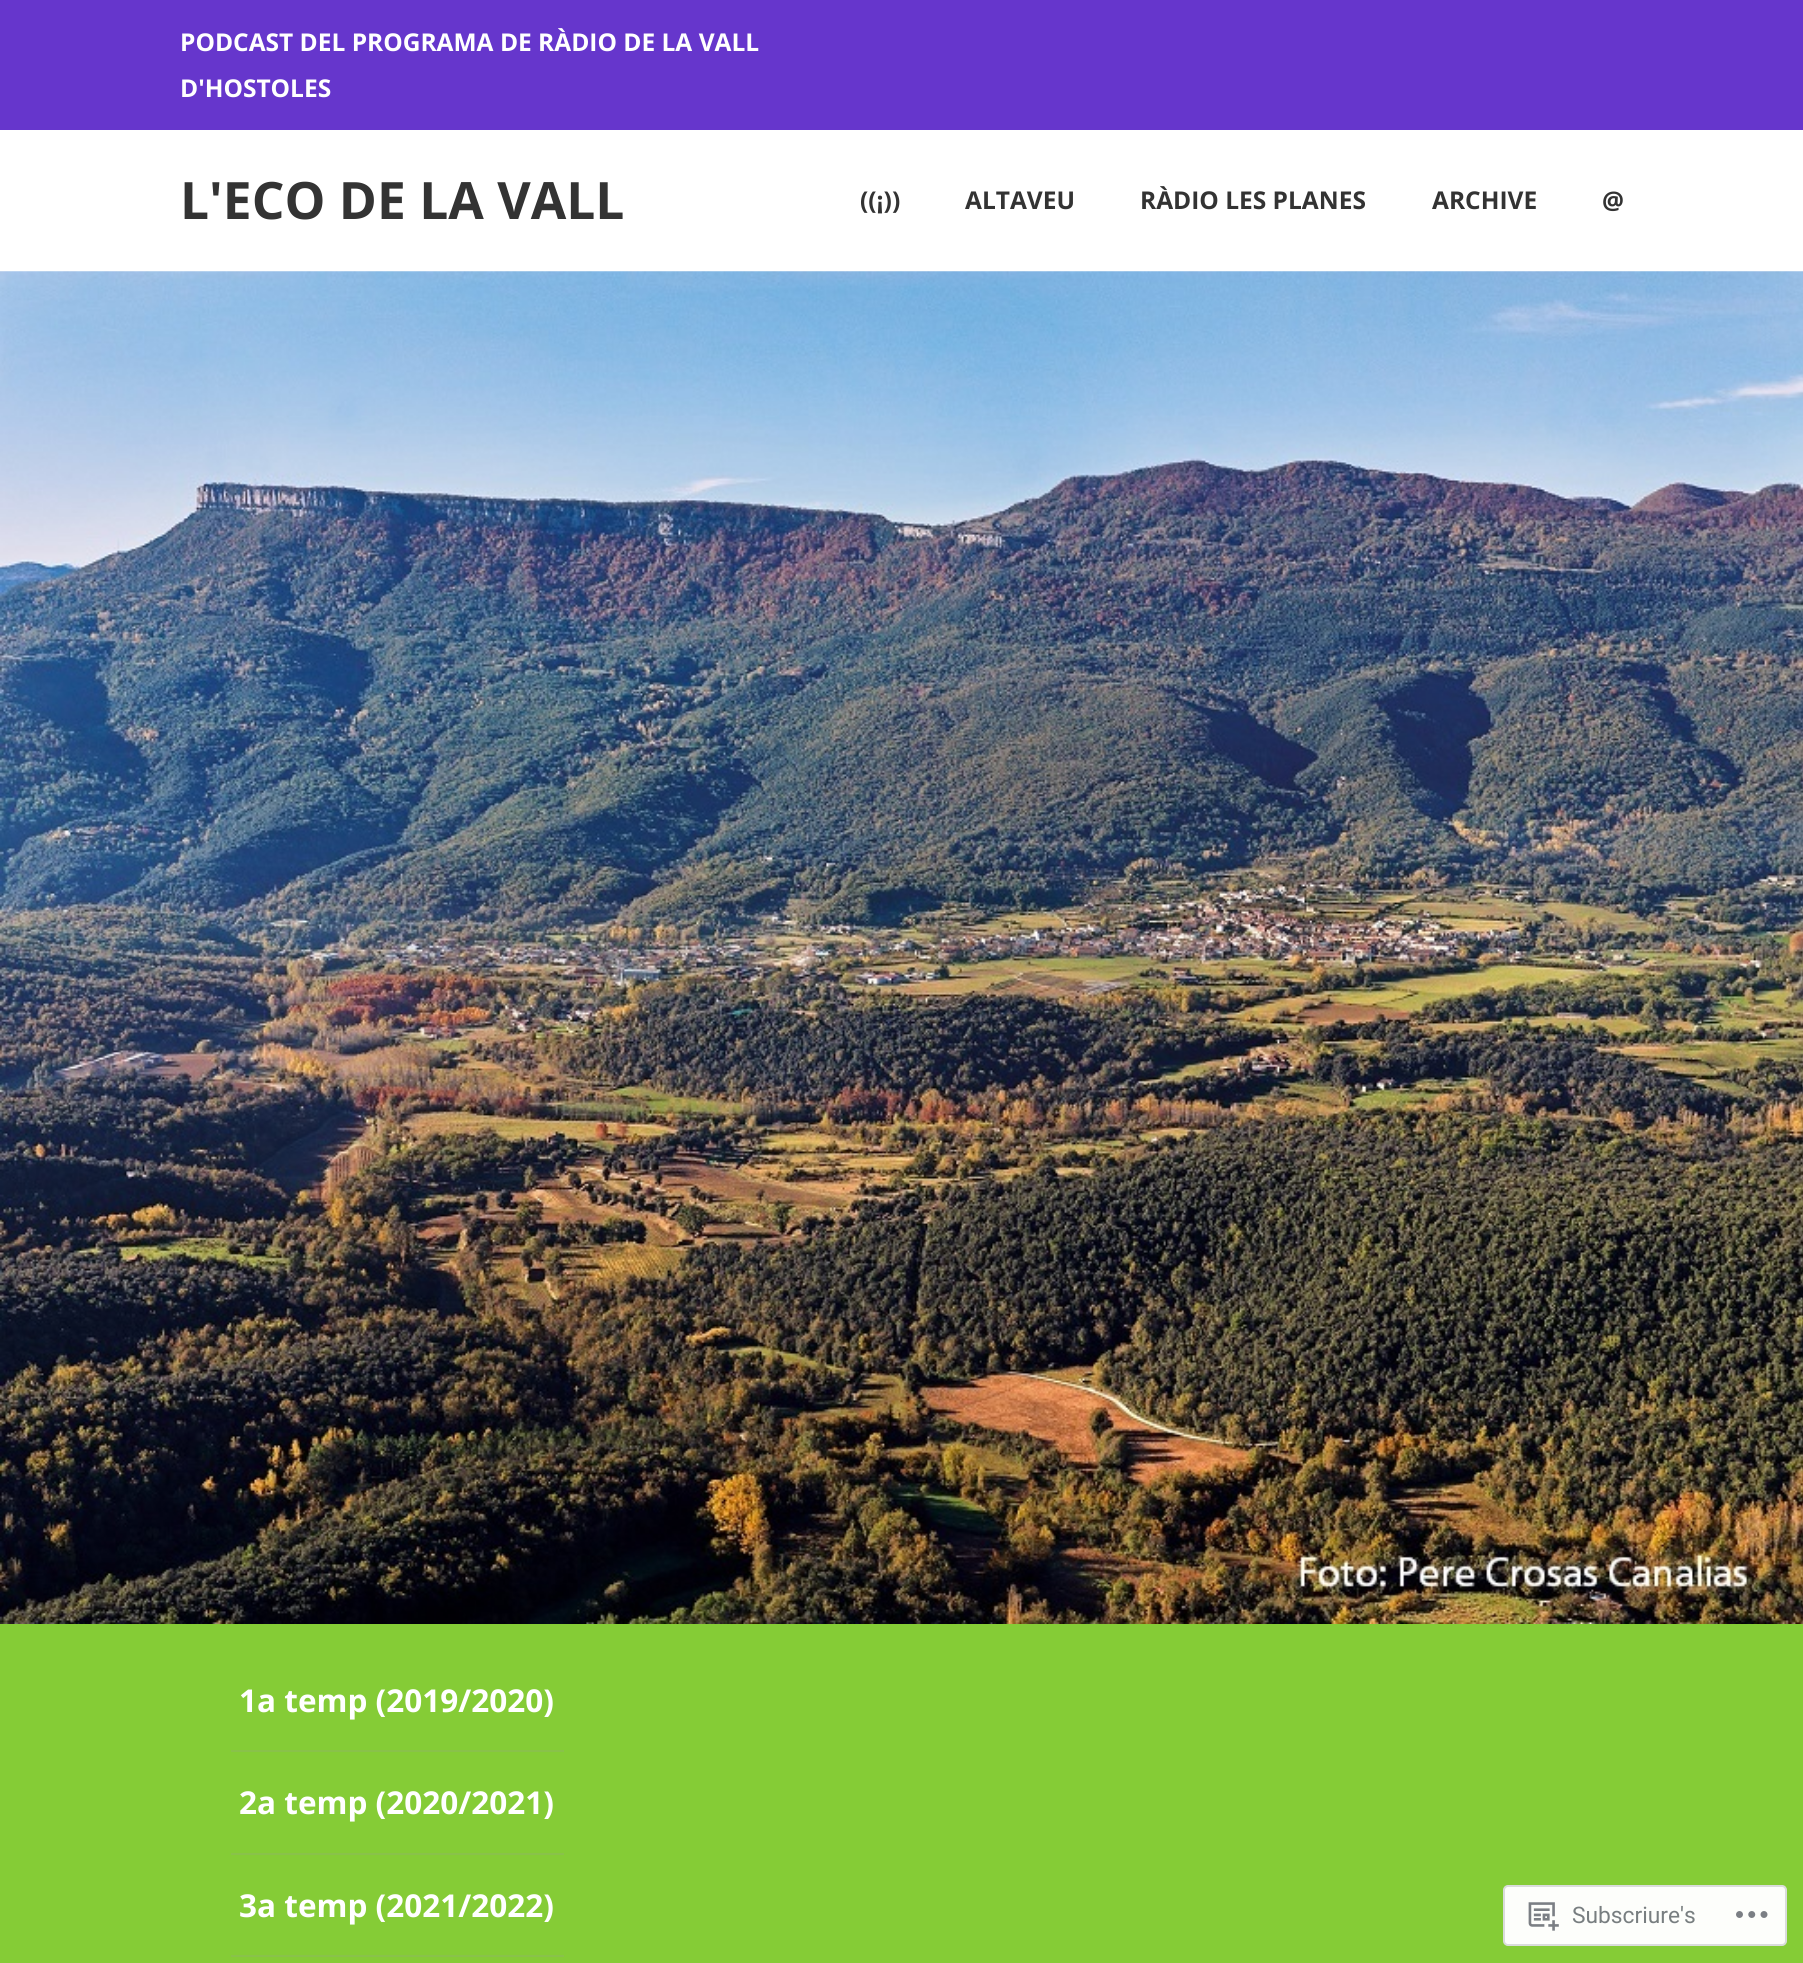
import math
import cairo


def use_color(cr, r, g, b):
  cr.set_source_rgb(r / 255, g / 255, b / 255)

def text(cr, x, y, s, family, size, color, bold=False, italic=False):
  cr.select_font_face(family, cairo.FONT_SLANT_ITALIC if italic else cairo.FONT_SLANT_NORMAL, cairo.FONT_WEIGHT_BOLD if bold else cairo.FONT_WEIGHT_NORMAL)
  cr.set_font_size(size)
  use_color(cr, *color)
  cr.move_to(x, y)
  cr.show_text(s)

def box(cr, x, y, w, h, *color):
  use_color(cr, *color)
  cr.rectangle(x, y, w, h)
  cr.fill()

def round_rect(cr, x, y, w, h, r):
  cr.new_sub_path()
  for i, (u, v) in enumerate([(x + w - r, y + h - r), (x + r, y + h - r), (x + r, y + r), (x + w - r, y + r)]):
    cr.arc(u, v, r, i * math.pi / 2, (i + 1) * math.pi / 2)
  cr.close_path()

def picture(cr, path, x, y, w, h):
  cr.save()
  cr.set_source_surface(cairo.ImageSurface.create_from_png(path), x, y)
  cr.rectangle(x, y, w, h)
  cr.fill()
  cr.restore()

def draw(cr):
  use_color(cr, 255, 255, 255)
  cr.paint()
  box(cr, 0, 0, 1803, 130, 102, 54, 204)
  picture(cr, "img_01.png", 0, 271, 1803, 1353)
  box(cr, 0, 1624, 1803, 339, 133, 204, 54)
  box(cr, 231, 1750, 333, 2, 137, 194, 74)
  box(cr, 231, 1853, 333, 2, 137, 194, 74)
  box(cr, 231, 1955, 333, 2, 137, 194, 74)
  use_color(cr, 253, 254, 251)
  round_rect(cr, 1504, 1886, 282, 59, 4)
  cr.fill_preserve()
  use_color(cr, 218, 220, 219)
  cr.stroke()
  picture(cr, "img_02.png", 1528, 1902, 31, 29)
  picture(cr, "img_03.png", 1736, 1911, 32, 7)
  text(cr, 180, 51, "PODCAST DEL PROGRAMA DE RÀDIO DE LA VALL", "Open Sans", 24.5, (255, 255, 255), bold=True)
  text(cr, 180, 97, "D'HOSTOLES", "Open Sans", 24.5, (255, 255, 255), bold=True)
  text(cr, 180, 219, "L'ECO DE LA VALL", "Open Sans", 51.5, (51, 51, 51), bold=True)
  text(cr, 860, 209, "((¡))", "Open Sans", 24.5, (51, 51, 51), bold=True)
  text(cr, 965, 209, "ALTAVEU", "Open Sans", 24.5, (51, 51, 51), bold=True)
  text(cr, 1140, 209, "RÀDIO LES PLANES", "Open Sans", 24.5, (51, 51, 51), bold=True)
  text(cr, 1432, 209, "ARCHIVE", "Open Sans", 24.5, (51, 51, 51), bold=True)
  text(cr, 1602, 209, "@", "Open Sans", 24.5, (51, 51, 51), bold=True)
  text(cr, 239, 1712, "1a temp (2019/2020)", "Open Sans", 31.5, (255, 255, 255), bold=True)
  text(cr, 239, 1814, "2a temp (2020/2021)", "Open Sans", 31.5, (255, 255, 255), bold=True)
  text(cr, 239, 1917, "3a temp (2021/2022)", "Open Sans", 31.5, (255, 255, 255), bold=True)
  text(cr, 1572, 1923, "Subscriure's", "Roboto", 22.75, (120, 126, 128))


surface = cairo.ImageSurface(cairo.FORMAT_RGB24, 1803, 1963)
cr = cairo.Context(surface)
options = cairo.FontOptions()
options.set_hint_metrics(cairo.HINT_METRICS_OFF)
options.set_hint_style(cairo.HINT_STYLE_NONE)
cr.set_font_options(options)
cr.set_miter_limit(4)
draw(cr)
surface.write_to_png("out.png")
